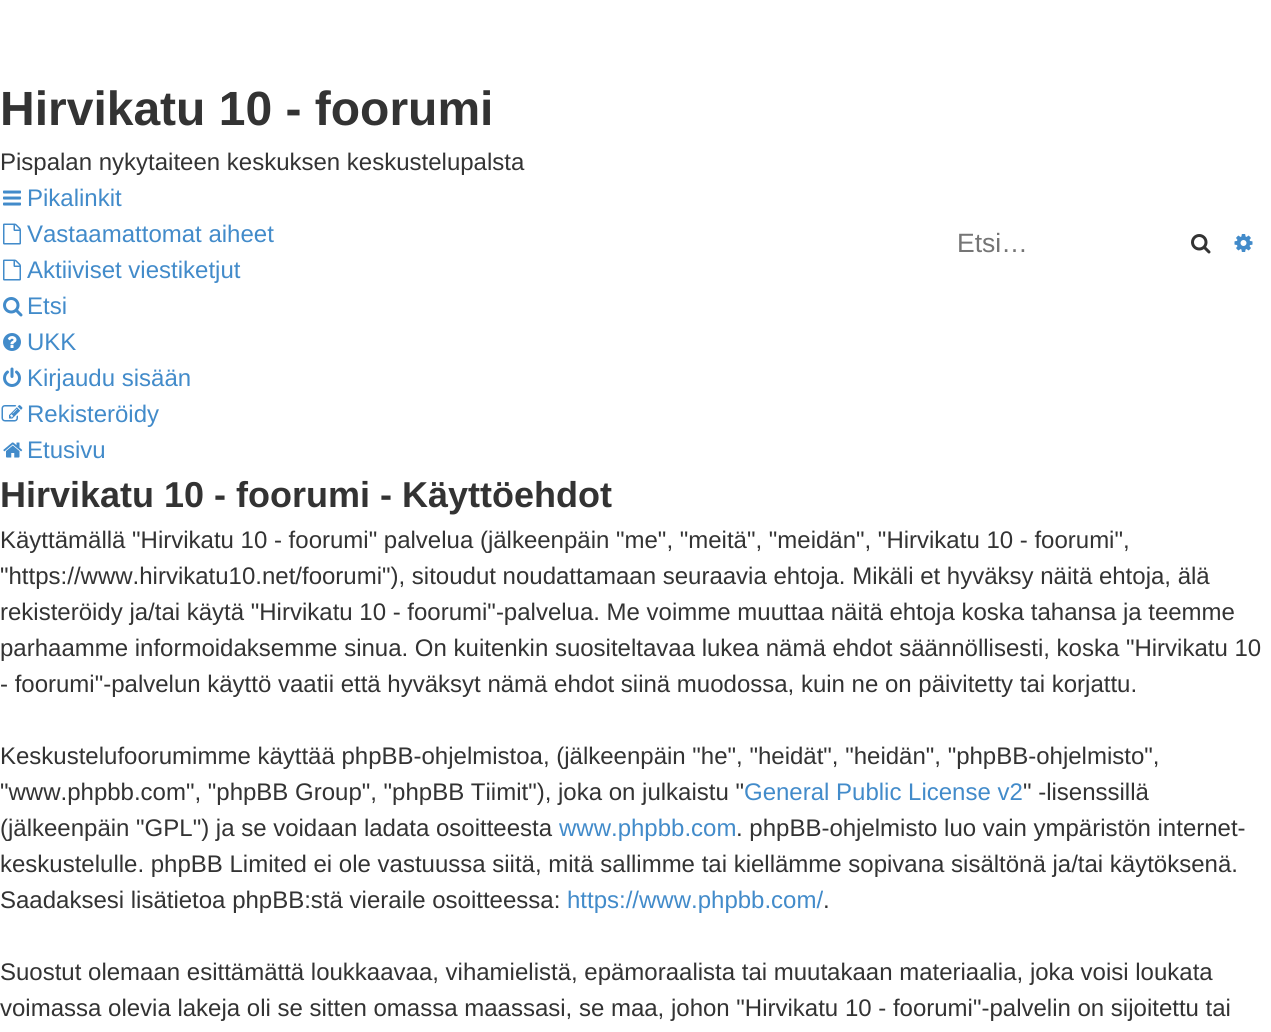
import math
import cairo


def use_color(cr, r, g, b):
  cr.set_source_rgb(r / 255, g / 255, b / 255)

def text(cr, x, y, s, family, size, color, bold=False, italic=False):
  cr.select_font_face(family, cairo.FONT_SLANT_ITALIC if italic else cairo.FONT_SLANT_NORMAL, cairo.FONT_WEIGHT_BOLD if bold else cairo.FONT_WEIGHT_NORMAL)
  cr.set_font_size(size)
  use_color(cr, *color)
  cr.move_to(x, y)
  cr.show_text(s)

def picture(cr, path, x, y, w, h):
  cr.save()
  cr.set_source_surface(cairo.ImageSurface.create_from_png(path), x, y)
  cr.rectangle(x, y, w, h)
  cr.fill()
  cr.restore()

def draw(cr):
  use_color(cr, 255, 255, 255)
  cr.paint()
  picture(cr, "img_01.png", 1191, 234, 20, 20)
  picture(cr, "img_02.png", 1234, 234, 19, 18)
  picture(cr, "img_03.png", 3, 190, 18, 16)
  picture(cr, "img_04.png", 3, 223, 18, 22)
  picture(cr, "img_04.png", 3, 259, 18, 22)
  picture(cr, "img_05.png", 3, 297, 20, 20)
  picture(cr, "img_06.png", 3, 333, 18, 18)
  picture(cr, "img_07.png", 3, 367, 18, 20)
  picture(cr, "img_08.png", 1, 405, 22, 17)
  picture(cr, "img_09.png", 3, 442, 20, 16)
  text(cr, 0, 125, "Hirvikatu 10 - foorumi", "Liberation Sans", 48, (51, 51, 51), bold=True)
  text(cr, 0, 170, "Pispalan nykytaiteen keskuksen keskustelupalsta", "Liberation Sans", 24, (51, 51, 51))
  text(cr, 957, 252, "Etsi…", "Liberation Sans", 26.5, (117, 117, 117))
  text(cr, 27, 206, "Pikalinkit", "Liberation Sans", 24, (66, 139, 202))
  text(cr, 27, 242, "Vastaamattomat aiheet", "Liberation Sans", 24, (66, 139, 202))
  text(cr, 27, 278, "Aktiiviset viestiketjut", "Liberation Sans", 24, (66, 139, 202))
  text(cr, 27, 314, "Etsi", "Liberation Sans", 24, (66, 139, 202))
  text(cr, 27, 350, "UKK", "Liberation Sans", 24, (66, 139, 202))
  text(cr, 27, 386, "Kirjaudu sisään", "Liberation Sans", 24, (66, 139, 202))
  text(cr, 27, 422, "Rekisteröidy", "Liberation Sans", 24, (66, 139, 202))
  text(cr, 27, 458, "Etusivu", "Liberation Sans", 24, (66, 139, 202))
  text(cr, 0, 507, "Hirvikatu 10 - foorumi - Käyttöehdot", "Liberation Sans", 36, (51, 51, 51), bold=True)
  text(cr, 0, 548, "Käyttämällä \"Hirvikatu 10 - foorumi\" palvelua (jälkeenpäin \"me\", \"meitä\", \"meidän\", \"Hirvikatu 10 - foorumi\",", "Liberation Sans", 24, (51, 51, 51))
  text(cr, 0, 584, "\"https://www.hirvikatu10.net/foorumi\"), sitoudut noudattamaan seuraavia ehtoja. Mikäli et hyväksy näitä ehtoja, älä", "Liberation Sans", 24, (51, 51, 51))
  text(cr, 0, 620, "rekisteröidy ja/tai käytä \"Hirvikatu 10 - foorumi\"-palvelua. Me voimme muuttaa näitä ehtoja koska tahansa ja teemme", "Liberation Sans", 24, (51, 51, 51))
  text(cr, 0, 656, "parhaamme informoidaksemme sinua. On kuitenkin suositeltavaa lukea nämä ehdot säännöllisesti, koska \"Hirvikatu 10", "Liberation Sans", 24, (51, 51, 51))
  text(cr, 0, 692, "- foorumi\"-palvelun käyttö vaatii että hyväksyt nämä ehdot siinä muodossa, kuin ne on päivitetty tai korjattu.", "Liberation Sans", 24, (51, 51, 51))
  text(cr, 0, 764, "Keskustelufoorumimme käyttää phpBB-ohjelmistoa, (jälkeenpäin \"he\", \"heidät\", \"heidän\", \"phpBB-ohjelmisto\",", "Liberation Sans", 24, (51, 51, 51))
  text(cr, 0, 800, "\"www.phpbb.com\", \"phpBB Group\", \"phpBB Tiimit\"), joka on julkaistu \"", "Liberation Sans", 24, (51, 51, 51))
  text(cr, 744, 800, "General Public License v2", "Liberation Sans", 24, (66, 139, 202))
  text(cr, 1023, 800, "\" -lisenssillä", "Liberation Sans", 24, (51, 51, 51))
  text(cr, 0, 836, "(jälkeenpäin \"GPL\") ja se voidaan ladata osoitteesta", "Liberation Sans", 24, (51, 51, 51))
  text(cr, 559, 836, "www.phpbb.com", "Liberation Sans", 24, (66, 139, 202))
  text(cr, 736, 836, ". phpBB-ohjelmisto luo vain ympäristön internet-", "Liberation Sans", 24, (51, 51, 51))
  text(cr, 0, 872, "keskustelulle. phpBB Limited ei ole vastuussa siitä, mitä sallimme tai kiellämme sopivana sisältönä ja/tai käytöksenä.", "Liberation Sans", 24, (51, 51, 51))
  text(cr, 0, 908, "Saadaksesi lisätietoa phpBB:stä vieraile osoitteessa:", "Liberation Sans", 24, (51, 51, 51))
  text(cr, 567, 908, "https://www.phpbb.com/", "Liberation Sans", 24, (66, 139, 202))
  text(cr, 823, 908, ".", "Liberation Sans", 24, (51, 51, 51))
  text(cr, 0, 980, "Suostut olemaan esittämättä loukkaavaa, vihamielistä, epämoraalista tai muutakaan materiaalia, joka voisi loukata", "Liberation Sans", 24, (51, 51, 51))
  text(cr, 0, 1016, "voimassa olevia lakeja oli se sitten omassa maassasi, se maa, johon \"Hirvikatu 10 - foorumi\"-palvelin on sijoitettu tai", "Liberation Sans", 24, (51, 51, 51))


surface = cairo.ImageSurface(cairo.FORMAT_RGB24, 1271, 1032)
cr = cairo.Context(surface)
options = cairo.FontOptions()
options.set_hint_metrics(cairo.HINT_METRICS_OFF)
options.set_hint_style(cairo.HINT_STYLE_NONE)
cr.set_font_options(options)
cr.set_miter_limit(4)
draw(cr)
surface.write_to_png("out.png")
